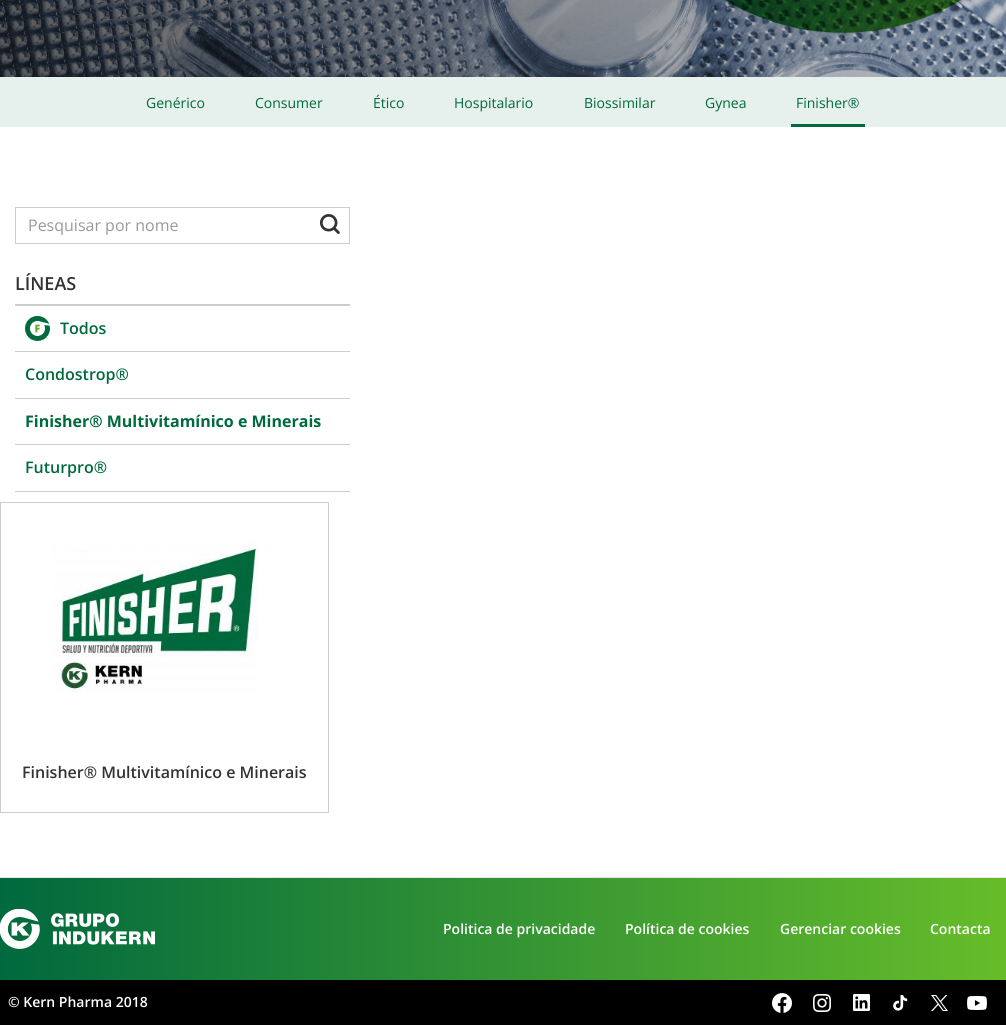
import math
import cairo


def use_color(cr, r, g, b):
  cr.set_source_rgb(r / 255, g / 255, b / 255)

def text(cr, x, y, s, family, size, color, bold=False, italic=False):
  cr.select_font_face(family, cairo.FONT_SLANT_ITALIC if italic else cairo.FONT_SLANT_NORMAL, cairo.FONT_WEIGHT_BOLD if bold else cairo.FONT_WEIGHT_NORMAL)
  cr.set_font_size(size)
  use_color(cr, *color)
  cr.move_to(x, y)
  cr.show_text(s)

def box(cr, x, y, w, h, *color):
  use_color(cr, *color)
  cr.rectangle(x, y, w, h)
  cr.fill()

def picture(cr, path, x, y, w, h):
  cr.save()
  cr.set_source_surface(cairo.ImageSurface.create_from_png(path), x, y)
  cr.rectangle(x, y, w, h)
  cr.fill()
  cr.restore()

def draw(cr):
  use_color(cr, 255, 255, 255)
  cr.paint()
  picture(cr, "img_01.png", 0, 0, 1006, 77)
  box(cr, 0, 77, 1006, 50, 230, 240, 236)
  box(cr, 791, 124, 74, 3, 0, 105, 62)
  cr.rectangle(15.5, 207.5, 334, 36)
  use_color(cr, 205, 205, 205)
  cr.set_line_width(1)
  cr.stroke()
  picture(cr, "img_02.png", 320, 214, 20, 20)
  box(cr, 15, 304, 335, 2, 205, 205, 205)
  box(cr, 15, 351, 335, 1, 205, 205, 205)
  picture(cr, "img_03.png", 25, 316, 25, 25)
  box(cr, 15, 398, 335, 1, 205, 205, 205)
  box(cr, 15, 444, 335, 1, 205, 205, 205)
  box(cr, 15, 491, 335, 1, 205, 205, 205)
  cr.rectangle(0.5, 502.5, 328, 310)
  cr.stroke()
  picture(cr, "img_04.png", 51, 541, 208, 152)
  gradient = cairo.LinearGradient(0, 929, 1006, 929)
  gradient.add_color_stop_rgba(0, 0, 0.412, 0.243, 1)
  gradient.add_color_stop_rgba(1, 0.4, 0.741, 0.161, 1)
  cr.set_source(gradient)
  cr.rectangle(0, 878, 1006, 102)
  cr.fill()
  box(cr, 0, 877, 1006, 1, 229, 229, 229)
  picture(cr, "img_05.png", 0, 909, 155, 40)
  box(cr, 0, 980, 1006, 45, 0, 0, 0)
  picture(cr, "img_06.png", 772, 993, 20, 20)
  picture(cr, "img_07.png", 813, 994, 18, 18)
  picture(cr, "img_08.png", 853, 994, 17, 17)
  picture(cr, "img_09.png", 893, 995, 15, 16)
  picture(cr, "img_10.png", 931, 995, 17, 16)
  picture(cr, "img_11.png", 967, 996, 20, 14)
  text(cr, 146, 108, "Genérico", "Open Sans", 14, (0, 105, 62))
  text(cr, 255, 108, "Consumer", "Open Sans", 14, (0, 105, 62))
  text(cr, 373, 108, "Ético", "Open Sans", 14, (0, 105, 62))
  text(cr, 454, 108, "Hospitalario", "Open Sans", 14, (0, 105, 62))
  text(cr, 584, 108, "Biossimilar", "Open Sans", 14, (0, 105, 62))
  text(cr, 705, 108, "Gynea", "Open Sans", 14, (0, 105, 62))
  text(cr, 796, 108, "Finisher®", "Open Sans", 14, (0, 105, 62))
  text(cr, 28, 231, "Pesquisar por nome", "Open Sans", 16, (153, 153, 153))
  text(cr, 15, 290, "LÍNEAS", "Open Sans SemiBold", 18, (51, 51, 51))
  text(cr, 60, 334, "Todos", "Open Sans SemiBold", 16, (0, 105, 62))
  text(cr, 25, 380, "Condostrop®", "Open Sans SemiBold", 16, (0, 105, 62))
  text(cr, 25, 427, "Finisher® Multivitamínico e Minerais", "Open Sans", 16, (0, 105, 62), bold=True)
  text(cr, 25, 473, "Futurpro®", "Open Sans SemiBold", 16, (0, 105, 62))
  text(cr, 22, 778, "Finisher® Multivitamínico e Minerais", "Open Sans SemiBold", 16, (51, 51, 51))
  text(cr, 443, 934, "Politica de privacidade", "Open Sans SemiBold", 14, (255, 255, 255))
  text(cr, 625, 934, "Política de cookies", "Open Sans SemiBold", 14, (255, 255, 255))
  text(cr, 780, 934, "Gerenciar cookies", "Open Sans SemiBold", 14, (255, 255, 255))
  text(cr, 930, 934, "Contacta", "Open Sans SemiBold", 14, (255, 255, 255))
  text(cr, 8, 1007, "© Kern Pharma 2018", "Open Sans SemiBold", 14, (255, 255, 255))


surface = cairo.ImageSurface(cairo.FORMAT_RGB24, 1006, 1026)
cr = cairo.Context(surface)
options = cairo.FontOptions()
options.set_hint_metrics(cairo.HINT_METRICS_OFF)
options.set_hint_style(cairo.HINT_STYLE_NONE)
cr.set_font_options(options)
cr.set_miter_limit(4)
draw(cr)
surface.write_to_png("out.png")
